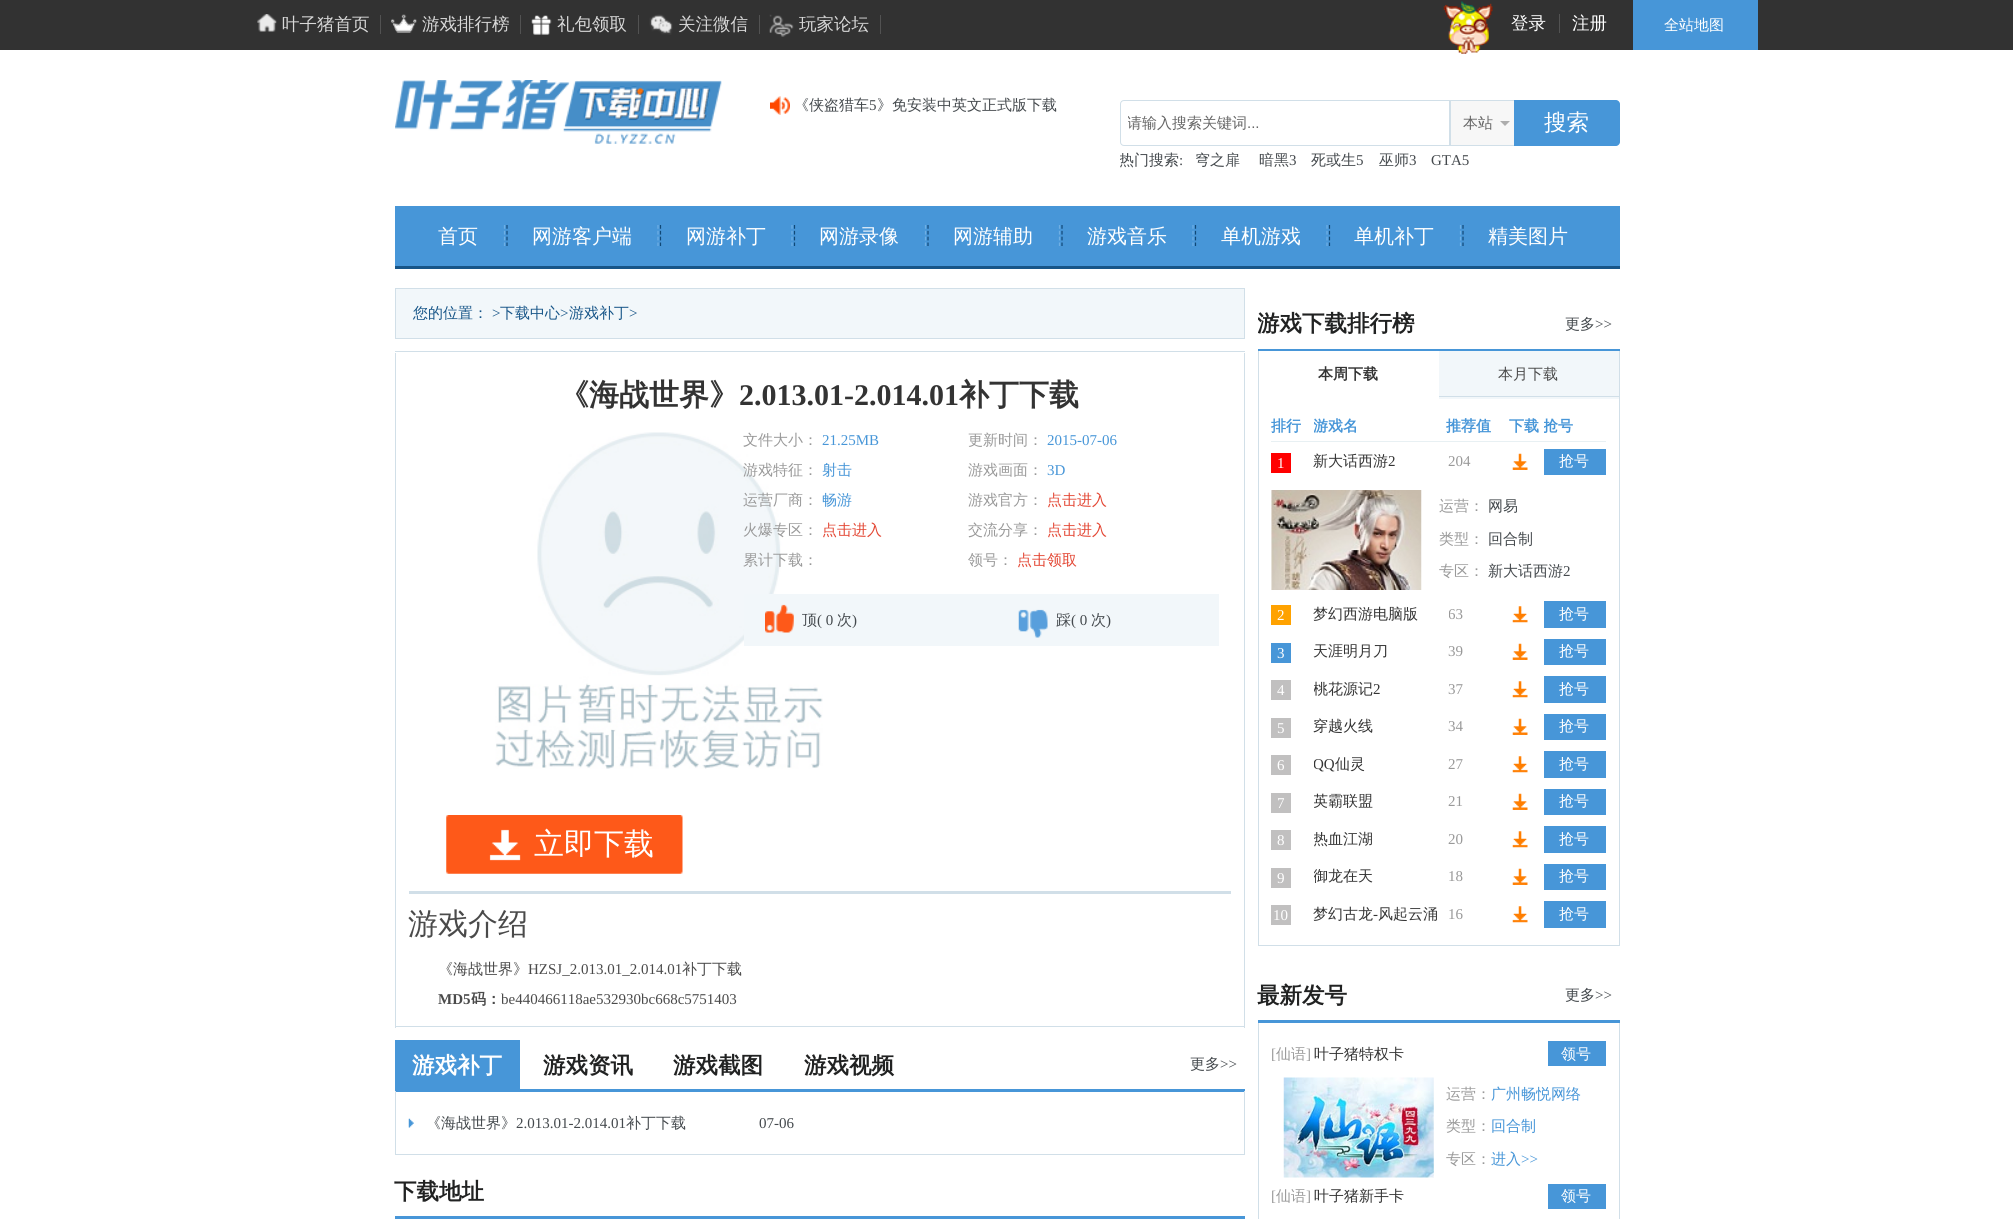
import math
import cairo


def use_color(cr, r, g, b):
  cr.set_source_rgb(r / 255, g / 255, b / 255)

def text(cr, x, y, s, family, size, color, bold=False, italic=False):
  cr.select_font_face(family, cairo.FONT_SLANT_ITALIC if italic else cairo.FONT_SLANT_NORMAL, cairo.FONT_WEIGHT_BOLD if bold else cairo.FONT_WEIGHT_NORMAL)
  cr.set_font_size(size)
  use_color(cr, *color)
  cr.move_to(x, y)
  cr.show_text(s)

def box(cr, x, y, w, h, *color):
  use_color(cr, *color)
  cr.rectangle(x, y, w, h)
  cr.fill()

def picture(cr, path, x, y, w, h):
  cr.save()
  cr.set_source_surface(cairo.ImageSurface.create_from_png(path), x, y)
  cr.rectangle(x, y, w, h)
  cr.fill()
  cr.restore()

def draw(cr):
  use_color(cr, 255, 255, 255)
  cr.paint()
  box(cr, 0, 0, 2013, 50, 50, 50, 50)
  picture(cr, "img_01.png", 257, 14, 20, 18)
  box(cr, 380, 15, 1, 19, 82, 82, 82)
  picture(cr, "img_02.png", 391, 14, 26, 19)
  box(cr, 520, 15, 1, 19, 82, 82, 82)
  picture(cr, "img_03.png", 531, 15, 21, 20)
  box(cr, 638, 15, 1, 19, 82, 82, 82)
  picture(cr, "img_04.png", 649, 14, 24, 21)
  box(cr, 759, 15, 1, 19, 82, 82, 82)
  picture(cr, "img_05.png", 769, 14, 25, 23)
  box(cr, 880, 15, 1, 19, 82, 82, 82)
  picture(cr, "img_06.png", 1443, 1, 50, 53)
  box(cr, 1559, 14, 1, 19, 82, 82, 82)
  box(cr, 1633, 0, 125, 50, 71, 150, 216)
  picture(cr, "img_07.png", 395, 80, 327, 64)
  picture(cr, "img_08.png", 770, 96, 20, 19)
  cr.new_path()
  cr.move_to(1124, 100.5)
  cr.line_to(1449.5, 100.5)
  cr.line_to(1449.5, 145.5)
  cr.line_to(1124, 145.5)
  cr.curve_to(1122, 145.5, 1120.5, 144, 1120.5, 142)
  cr.line_to(1120.5, 104)
  cr.curve_to(1120.5, 102, 1122, 100.5, 1124, 100.5)
  cr.close_path()
  use_color(cr, 209, 223, 232)
  cr.set_line_width(1)
  cr.stroke()
  box(cr, 1451, 101, 63, 44, 247, 247, 247)
  box(cr, 1450, 100, 64, 1, 209, 223, 232)
  box(cr, 1450, 145, 64, 1, 209, 223, 232)
  box(cr, 1450, 100, 1, 46, 209, 223, 232)
  use_color(cr, 173, 173, 173)
  cr.new_path()
  cr.move_to(1500, 121)
  cr.line_to(1510, 121)
  cr.line_to(1505, 126)
  cr.close_path()
  cr.fill()
  use_color(cr, 71, 150, 216)
  cr.new_path()
  cr.move_to(1514, 100)
  cr.line_to(1616, 100)
  cr.curve_to(1618, 100, 1620, 102, 1620, 104)
  cr.line_to(1620, 142)
  cr.curve_to(1620, 144, 1618, 146, 1616, 146)
  cr.line_to(1514, 146)
  cr.close_path()
  cr.fill()
  box(cr, 395, 206, 1225, 60, 71, 150, 216)
  box(cr, 395, 266, 1225, 3, 23, 85, 136)
  cr.new_path()
  cr.move_to(507, 225)
  cr.line_to(507, 246)
  use_color(cr, 16, 72, 118)
  cr.set_line_width(1.2)
  cr.set_dash([3.75, 2.09])
  cr.stroke()
  cr.new_path()
  cr.move_to(660.5, 225)
  cr.line_to(660.5, 246)
  cr.stroke()
  cr.new_path()
  cr.move_to(504.5, 225)
  cr.line_to(504.5, 246)
  use_color(cr, 111, 175, 228)
  cr.stroke()
  cr.new_path()
  cr.move_to(794.5, 225)
  cr.line_to(794.5, 246)
  use_color(cr, 16, 72, 118)
  cr.stroke()
  cr.new_path()
  cr.move_to(658, 225)
  cr.line_to(658, 246)
  use_color(cr, 111, 175, 228)
  cr.stroke()
  cr.new_path()
  cr.move_to(928, 225)
  cr.line_to(928, 246)
  use_color(cr, 16, 72, 118)
  cr.stroke()
  cr.new_path()
  cr.move_to(792, 225)
  cr.line_to(792, 246)
  use_color(cr, 111, 175, 228)
  cr.stroke()
  cr.new_path()
  cr.move_to(1062, 225)
  cr.line_to(1062, 246)
  use_color(cr, 16, 72, 118)
  cr.stroke()
  cr.new_path()
  cr.move_to(925.5, 225)
  cr.line_to(925.5, 246)
  use_color(cr, 111, 175, 228)
  cr.stroke()
  cr.new_path()
  cr.move_to(1195.5, 225)
  cr.line_to(1195.5, 246)
  use_color(cr, 16, 72, 118)
  cr.stroke()
  cr.new_path()
  cr.move_to(1059.5, 225)
  cr.line_to(1059.5, 246)
  use_color(cr, 111, 175, 228)
  cr.stroke()
  cr.new_path()
  cr.move_to(1329.5, 225)
  cr.line_to(1329.5, 246)
  use_color(cr, 16, 72, 118)
  cr.stroke()
  cr.new_path()
  cr.move_to(1193, 225)
  cr.line_to(1193, 246)
  use_color(cr, 111, 175, 228)
  cr.stroke()
  cr.new_path()
  cr.move_to(1463, 225)
  cr.line_to(1463, 246)
  use_color(cr, 16, 72, 118)
  cr.stroke()
  cr.new_path()
  cr.move_to(1327, 225)
  cr.line_to(1327, 246)
  use_color(cr, 111, 175, 228)
  cr.stroke()
  cr.new_path()
  cr.move_to(1460.5, 225)
  cr.line_to(1460.5, 246)
  cr.stroke()
  use_color(cr, 242, 247, 250)
  cr.rectangle(395.5, 288.5, 849, 50)
  cr.fill_preserve()
  use_color(cr, 209, 223, 232)
  cr.set_line_width(1)
  cr.set_dash([])
  cr.stroke()
  box(cr, 395, 351, 850, 1, 209, 223, 232)
  box(cr, 1244, 353, 1, 675, 209, 223, 232)
  box(cr, 395, 1026, 850, 1, 209, 223, 232)
  box(cr, 395, 353, 1, 675, 209, 223, 232)
  picture(cr, "img_11.png", 495, 432, 328, 337)
  box(cr, 744, 594, 475, 52, 242, 247, 250)
  picture(cr, "img_09.png", 765, 604, 29, 29)
  picture(cr, "img_10.png", 1018, 609, 30, 29)
  picture(cr, "img_12.png", 446, 815, 237, 59)
  box(cr, 409, 891, 822, 3, 209, 223, 232)
  box(cr, 395, 1089, 850, 3, 71, 150, 216)
  box(cr, 395, 1040, 125, 49, 71, 150, 216)
  box(cr, 1244, 1091, 1, 64, 209, 223, 232)
  box(cr, 395, 1154, 850, 1, 209, 223, 232)
  box(cr, 395, 1091, 1, 64, 209, 223, 232)
  picture(cr, "img_13.png", 408, 1118, 6, 10)
  box(cr, 395, 1216, 850, 3, 71, 150, 216)
  box(cr, 1258, 349, 362, 2, 71, 150, 216)
  box(cr, 1619, 351, 1, 595, 209, 223, 232)
  box(cr, 1258, 945, 362, 1, 209, 223, 232)
  box(cr, 1258, 351, 1, 595, 209, 223, 232)
  box(cr, 1439, 351, 180, 48, 242, 247, 250)
  box(cr, 1439, 396, 180, 1, 209, 223, 232)
  box(cr, 1271, 441, 335, 1, 232, 240, 243)
  box(cr, 1271, 453, 20, 20, 255, 0, 0)
  picture(cr, "img_14.png", 1512, 453, 16, 17)
  box(cr, 1544, 449, 62, 26, 71, 150, 216)
  picture(cr, "img_15.png", 1271, 490, 151, 100)
  box(cr, 1271, 605, 20, 20, 255, 162, 0)
  picture(cr, "img_16.png", 1512, 606, 16, 17)
  box(cr, 1544, 601, 62, 27, 71, 150, 216)
  box(cr, 1271, 643, 20, 20, 71, 150, 216)
  picture(cr, "img_14.png", 1512, 643, 16, 17)
  box(cr, 1544, 639, 62, 26, 71, 150, 216)
  box(cr, 1271, 680, 20, 20, 193, 192, 192)
  picture(cr, "img_16.png", 1512, 681, 16, 17)
  box(cr, 1544, 676, 62, 27, 71, 150, 216)
  box(cr, 1271, 718, 20, 20, 193, 192, 192)
  picture(cr, "img_14.png", 1512, 718, 16, 17)
  box(cr, 1544, 714, 62, 26, 71, 150, 216)
  box(cr, 1271, 755, 20, 20, 193, 192, 192)
  picture(cr, "img_16.png", 1512, 756, 16, 17)
  box(cr, 1544, 751, 62, 27, 71, 150, 216)
  box(cr, 1271, 793, 20, 20, 193, 192, 192)
  picture(cr, "img_14.png", 1512, 793, 16, 17)
  box(cr, 1544, 789, 62, 26, 71, 150, 216)
  box(cr, 1271, 830, 20, 20, 193, 192, 192)
  picture(cr, "img_16.png", 1512, 831, 16, 17)
  box(cr, 1544, 826, 62, 27, 71, 150, 216)
  box(cr, 1271, 868, 20, 20, 193, 192, 192)
  picture(cr, "img_14.png", 1512, 868, 16, 17)
  box(cr, 1544, 864, 62, 26, 71, 150, 216)
  box(cr, 1271, 905, 20, 20, 193, 192, 192)
  picture(cr, "img_16.png", 1512, 906, 16, 17)
  box(cr, 1544, 901, 62, 27, 71, 150, 216)
  box(cr, 1258, 1020, 362, 3, 71, 150, 216)
  box(cr, 1619, 1023, 1, 196, 209, 223, 232)
  box(cr, 1258, 1023, 1, 196, 209, 223, 232)
  box(cr, 1548, 1041, 58, 25, 71, 150, 216)
  picture(cr, "img_17.png", 1283, 1077, 151, 101)
  box(cr, 1548, 1184, 58, 25, 71, 150, 216)
  text(cr, 282, 30, "叶子猪首页", "WenQuanYi Zen Hei Medium", 17.5, (216, 216, 216))
  text(cr, 422, 30, "游戏排行榜", "WenQuanYi Zen Hei Medium", 17.5, (216, 216, 216))
  text(cr, 557, 30, "礼包领取", "WenQuanYi Zen Hei Medium", 17.5, (216, 216, 216))
  text(cr, 678, 30, "关注微信", "WenQuanYi Zen Hei Medium", 17.5, (216, 216, 216))
  text(cr, 799, 30, "玩家论坛", "WenQuanYi Zen Hei Medium", 17.5, (216, 216, 216))
  text(cr, 1511, 29, "登录", "WenQuanYi Zen Hei Medium", 17.5, (255, 255, 255))
  text(cr, 1572, 29, "注册", "WenQuanYi Zen Hei Medium", 17.5, (255, 255, 255))
  text(cr, 1664, 30, "全站地图", "WenQuanYi Zen Hei Medium", 15, (255, 255, 255))
  text(cr, 794, 110, "《侠盗猎车", "WenQuanYi Zen Hei Medium", 15, (68, 73, 77))
  text(cr, 869, 110, "5", "Liberation Serif", 15, (68, 73, 77))
  text(cr, 877, 110, "》免安装中英文正式版下载", "WenQuanYi Zen Hei Medium", 15, (68, 73, 77))
  cr.save()
  cr.rectangle(1128, 113, 315, 21)
  cr.clip()
  text(cr, 1127, 128, "请输入搜索关键词", "WenQuanYi Zen Hei Medium", 15, (102, 102, 102))
  cr.restore()
  text(cr, 1247, 128, "...", "Liberation Sans", 15, (102, 102, 102))
  text(cr, 1463, 128, "本站", "WenQuanYi Zen Hei Medium", 15, (102, 102, 102))
  text(cr, 1544, 130, "搜索", "WenQuanYi Zen Hei Medium", 22.5, (255, 255, 255))
  cr.save()
  cr.rectangle(1120, 146, 500, 28)
  cr.clip()
  text(cr, 1119, 165, "热门搜索", "WenQuanYi Zen Hei Medium", 15, (68, 73, 77))
  cr.restore()
  text(cr, 1179, 165, ":", "Liberation Serif", 15, (68, 73, 77))
  text(cr, 1195, 165, "穹之扉", "WenQuanYi Zen Hei Medium", 15, (68, 73, 77))
  text(cr, 1259, 165, "暗黑", "WenQuanYi Zen Hei Medium", 15, (68, 73, 77))
  text(cr, 1289, 165, "3", "Liberation Serif", 15, (68, 73, 77))
  text(cr, 1311, 165, "死或生", "WenQuanYi Zen Hei Medium", 15, (68, 73, 77))
  text(cr, 1356, 165, "5", "Liberation Serif", 15, (68, 73, 77))
  text(cr, 1379, 165, "巫师", "WenQuanYi Zen Hei Medium", 15, (68, 73, 77))
  text(cr, 1409, 165, "3", "Liberation Serif", 15, (68, 73, 77))
  text(cr, 1431, 165, "GTA5", "Liberation Serif", 15, (68, 73, 77))
  text(cr, 438, 243, "首页", "WenQuanYi Zen Hei Medium", 20, (255, 255, 255))
  text(cr, 532, 243, "网游客户端", "WenQuanYi Zen Hei Medium", 20, (255, 255, 255))
  text(cr, 686, 243, "网游补丁", "WenQuanYi Zen Hei Medium", 20, (255, 255, 255))
  text(cr, 819, 243, "网游录像", "WenQuanYi Zen Hei Medium", 20, (255, 255, 255))
  text(cr, 953, 243, "网游辅助", "WenQuanYi Zen Hei Medium", 20, (255, 255, 255))
  text(cr, 1087, 243, "游戏音乐", "WenQuanYi Zen Hei Medium", 20, (255, 255, 255))
  text(cr, 1221, 243, "单机游戏", "WenQuanYi Zen Hei Medium", 20, (255, 255, 255))
  text(cr, 1354, 243, "单机补丁", "WenQuanYi Zen Hei Medium", 20, (255, 255, 255))
  text(cr, 1488, 243, "精美图片", "WenQuanYi Zen Hei Medium", 20, (255, 255, 255))
  text(cr, 413, 318, "您的位置：", "WenQuanYi Zen Hei Medium", 15, (23, 85, 136))
  text(cr, 492, 318, ">", "Liberation Serif", 15, (23, 85, 136))
  text(cr, 500, 318, "下载中心", "WenQuanYi Zen Hei Medium", 15, (23, 85, 136))
  text(cr, 560, 318, ">", "Liberation Serif", 15, (23, 85, 136))
  text(cr, 569, 318, "游戏补丁", "WenQuanYi Zen Hei Medium", 15, (23, 85, 136))
  text(cr, 629, 318, ">", "Liberation Serif", 15, (23, 85, 136))
  text(cr, 559, 405, "《海战世界》", "WenQuanYi Zen Hei", 30, (51, 51, 51), bold=True)
  text(cr, 739, 405, "2.013.01-2.014.01", "Liberation Serif", 30, (51, 51, 51), bold=True)
  text(cr, 959, 405, "补丁下载", "WenQuanYi Zen Hei", 30, (51, 51, 51), bold=True)
  text(cr, 743, 445, "文件大小：", "WenQuanYi Zen Hei Medium", 15, (153, 153, 153))
  text(cr, 822, 445, "21.25MB", "Liberation Serif", 15, (71, 150, 216))
  text(cr, 968, 445, "更新时间：", "WenQuanYi Zen Hei Medium", 15, (153, 153, 153))
  text(cr, 1047, 445, "2015-07-06", "Liberation Serif", 15, (71, 150, 216))
  text(cr, 743, 475, "游戏特征：", "WenQuanYi Zen Hei Medium", 15, (153, 153, 153))
  text(cr, 822, 475, "射击", "WenQuanYi Zen Hei Medium", 15, (71, 150, 216))
  text(cr, 968, 475, "游戏画面：", "WenQuanYi Zen Hei Medium", 15, (153, 153, 153))
  text(cr, 1047, 475, "3D", "Liberation Serif", 15, (71, 150, 216))
  text(cr, 743, 505, "运营厂商：", "WenQuanYi Zen Hei Medium", 15, (153, 153, 153))
  text(cr, 822, 505, "畅游", "WenQuanYi Zen Hei Medium", 15, (71, 150, 216))
  text(cr, 968, 505, "游戏官方：", "WenQuanYi Zen Hei Medium", 15, (153, 153, 153))
  text(cr, 1047, 505, "点击进入", "WenQuanYi Zen Hei Medium", 15, (227, 70, 51))
  text(cr, 743, 535, "火爆专区：", "WenQuanYi Zen Hei Medium", 15, (153, 153, 153))
  text(cr, 822, 535, "点击进入", "WenQuanYi Zen Hei Medium", 15, (227, 70, 51))
  text(cr, 968, 535, "交流分享：", "WenQuanYi Zen Hei Medium", 15, (153, 153, 153))
  text(cr, 1047, 535, "点击进入", "WenQuanYi Zen Hei Medium", 15, (227, 70, 51))
  text(cr, 743, 565, "累计下载：", "WenQuanYi Zen Hei Medium", 15, (153, 153, 153))
  text(cr, 968, 565, "领号：", "WenQuanYi Zen Hei Medium", 15, (153, 153, 153))
  text(cr, 1017, 565, "点击领取", "WenQuanYi Zen Hei Medium", 15, (227, 70, 51))
  text(cr, 802, 625, "顶", "WenQuanYi Zen Hei Medium", 15, (68, 73, 77))
  text(cr, 817, 625, "( 0", "Liberation Serif", 15, (68, 73, 77))
  text(cr, 837, 625, "次", "WenQuanYi Zen Hei Medium", 15, (68, 73, 77))
  text(cr, 852, 625, ")", "Liberation Serif", 15, (68, 73, 77))
  text(cr, 1056, 625, "踩", "WenQuanYi Zen Hei Medium", 15, (68, 73, 77))
  text(cr, 1071, 625, "( 0", "Liberation Serif", 15, (68, 73, 77))
  text(cr, 1091, 625, "次", "WenQuanYi Zen Hei Medium", 15, (68, 73, 77))
  text(cr, 1106, 625, ")", "Liberation Serif", 15, (68, 73, 77))
  text(cr, 534, 854, "立即下载", "WenQuanYi Zen Hei Medium", 30, (255, 255, 255))
  text(cr, 408, 934, "游戏介绍", "WenQuanYi Zen Hei Medium", 30, (74, 74, 74))
  text(cr, 438, 974, "《海战世界》", "WenQuanYi Zen Hei Medium", 15, (74, 74, 74))
  text(cr, 528, 974, "HZSJ_2.013.01_2.014.01", "Liberation Serif", 15, (74, 74, 74))
  text(cr, 682, 974, "补丁下载", "WenQuanYi Zen Hei Medium", 15, (74, 74, 74))
  text(cr, 438, 1004, "MD5", "Liberation Serif", 15, (74, 74, 74), bold=True)
  text(cr, 471, 1004, "码：", "WenQuanYi Zen Hei", 15, (74, 74, 74), bold=True)
  text(cr, 501, 1004, "be440466118ae532930bc668c5751403", "Liberation Serif", 15, (74, 74, 74))
  text(cr, 412, 1073, "游戏补丁", "WenQuanYi Zen Hei", 22.5, (255, 255, 255), bold=True)
  text(cr, 543, 1073, "游戏资讯", "WenQuanYi Zen Hei", 22.5, (33, 34, 34), bold=True)
  text(cr, 673, 1073, "游戏截图", "WenQuanYi Zen Hei", 22.5, (33, 34, 34), bold=True)
  text(cr, 804, 1073, "游戏视频", "WenQuanYi Zen Hei", 22.5, (33, 34, 34), bold=True)
  text(cr, 1190, 1069, "更多", "WenQuanYi Zen Hei Medium", 15, (68, 73, 77))
  text(cr, 1220, 1069, ">>", "Liberation Serif", 15, (68, 73, 77))
  text(cr, 426, 1128, "《海战世界》", "WenQuanYi Zen Hei Medium", 15, (68, 73, 77))
  text(cr, 516, 1128, "2.013.01-2.014.01", "Liberation Serif", 15, (68, 73, 77))
  text(cr, 626, 1128, "补丁下载", "WenQuanYi Zen Hei Medium", 15, (68, 73, 77))
  text(cr, 759, 1128, "07-06", "Liberation Serif", 15, (68, 73, 77))
  text(cr, 394, 1199, "下载地址", "WenQuanYi Zen Hei", 22.5, (33, 34, 34), bold=True)
  cr.save()
  cr.rectangle(1258, 300, 362, 646)
  cr.clip()
  text(cr, 1257, 331, "游戏下载排行榜", "WenQuanYi Zen Hei", 22.5, (33, 34, 34), bold=True)
  cr.restore()
  text(cr, 1565, 329, "更多", "WenQuanYi Zen Hei Medium", 15, (68, 73, 77))
  text(cr, 1595, 329, ">>", "Liberation Serif", 15, (68, 73, 77))
  text(cr, 1318, 379, "本周下载", "WenQuanYi Zen Hei", 15, (51, 51, 51), bold=True)
  text(cr, 1498, 379, "本月下载", "WenQuanYi Zen Hei Medium", 15, (74, 74, 74))
  text(cr, 1271, 431, "排行", "WenQuanYi Zen Hei", 15, (71, 150, 216), bold=True)
  cr.save()
  cr.rectangle(1314, 411, 132, 30)
  cr.clip()
  text(cr, 1313, 431, "游戏名", "WenQuanYi Zen Hei", 15, (71, 150, 216), bold=True)
  cr.restore()
  text(cr, 1446, 431, "推荐值", "WenQuanYi Zen Hei", 15, (71, 150, 216), bold=True)
  text(cr, 1509, 431, "下载", "WenQuanYi Zen Hei", 15, (71, 150, 216), bold=True)
  cr.save()
  cr.rectangle(1544, 411, 62, 30)
  cr.clip()
  text(cr, 1543, 431, "抢号", "WenQuanYi Zen Hei", 15, (71, 150, 216), bold=True)
  cr.restore()
  text(cr, 1277, 468, "1", "Liberation Serif", 15, (255, 255, 255))
  text(cr, 1313, 466, "新大话西游", "WenQuanYi Zen Hei Medium", 15, (51, 51, 51))
  text(cr, 1388, 466, "2", "Liberation Serif", 15, (51, 51, 51))
  text(cr, 1448, 466, "204", "Liberation Serif", 15, (153, 153, 153))
  text(cr, 1559, 466, "抢号", "WenQuanYi Zen Hei Medium", 15, (255, 255, 255))
  text(cr, 1439, 511, "运营：", "WenQuanYi Zen Hei Medium", 15, (153, 153, 153))
  text(cr, 1488, 511, "网易", "WenQuanYi Zen Hei Medium", 15, (68, 73, 77))
  text(cr, 1439, 544, "类型：", "WenQuanYi Zen Hei Medium", 15, (153, 153, 153))
  text(cr, 1488, 544, "回合制", "WenQuanYi Zen Hei Medium", 15, (68, 73, 77))
  text(cr, 1439, 576, "专区：", "WenQuanYi Zen Hei Medium", 15, (153, 153, 153))
  text(cr, 1488, 576, "新大话西游", "WenQuanYi Zen Hei Medium", 15, (68, 73, 77))
  text(cr, 1563, 576, "2", "Liberation Serif", 15, (68, 73, 77))
  text(cr, 1277, 620, "2", "Liberation Serif", 15, (255, 255, 255))
  text(cr, 1313, 619, "梦幻西游电脑版", "WenQuanYi Zen Hei Medium", 15, (51, 51, 51))
  cr.save()
  cr.rectangle(1449, 595, 64, 38)
  cr.clip()
  text(cr, 1448, 619, "63", "Liberation Serif", 15, (153, 153, 153))
  cr.restore()
  text(cr, 1559, 619, "抢号", "WenQuanYi Zen Hei Medium", 15, (255, 255, 255))
  text(cr, 1277, 658, "3", "Liberation Serif", 15, (255, 255, 255))
  text(cr, 1313, 656, "天涯明月刀", "WenQuanYi Zen Hei Medium", 15, (51, 51, 51))
  text(cr, 1448, 656, "39", "Liberation Serif", 15, (153, 153, 153))
  text(cr, 1559, 656, "抢号", "WenQuanYi Zen Hei Medium", 15, (255, 255, 255))
  text(cr, 1277, 695, "4", "Liberation Serif", 15, (255, 255, 255))
  cr.save()
  cr.rectangle(1314, 670, 135, 38)
  cr.clip()
  text(cr, 1313, 694, "桃花源记", "WenQuanYi Zen Hei Medium", 15, (51, 51, 51))
  cr.restore()
  text(cr, 1373, 694, "2", "Liberation Serif", 15, (51, 51, 51))
  text(cr, 1448, 694, "37", "Liberation Serif", 15, (153, 153, 153))
  text(cr, 1559, 694, "抢号", "WenQuanYi Zen Hei Medium", 15, (255, 255, 255))
  text(cr, 1277, 733, "5", "Liberation Serif", 15, (255, 255, 255))
  text(cr, 1313, 731, "穿越火线", "WenQuanYi Zen Hei Medium", 15, (51, 51, 51))
  text(cr, 1448, 731, "34", "Liberation Serif", 15, (153, 153, 153))
  text(cr, 1559, 731, "抢号", "WenQuanYi Zen Hei Medium", 15, (255, 255, 255))
  text(cr, 1277, 770, "6", "Liberation Serif", 15, (255, 255, 255))
  cr.save()
  cr.rectangle(1314, 745, 135, 38)
  cr.clip()
  text(cr, 1313, 769, "QQ", "Liberation Serif", 15, (51, 51, 51))
  cr.restore()
  text(cr, 1335, 769, "仙灵", "WenQuanYi Zen Hei Medium", 15, (51, 51, 51))
  text(cr, 1448, 769, "27", "Liberation Serif", 15, (153, 153, 153))
  text(cr, 1559, 769, "抢号", "WenQuanYi Zen Hei Medium", 15, (255, 255, 255))
  text(cr, 1277, 808, "7", "Liberation Serif", 15, (255, 255, 255))
  cr.save()
  cr.rectangle(1314, 783, 135, 37)
  cr.clip()
  text(cr, 1313, 806, "英霸联盟", "WenQuanYi Zen Hei Medium", 15, (51, 51, 51))
  cr.restore()
  text(cr, 1448, 806, "21", "Liberation Serif", 15, (153, 153, 153))
  text(cr, 1559, 806, "抢号", "WenQuanYi Zen Hei Medium", 15, (255, 255, 255))
  text(cr, 1277, 845, "8", "Liberation Serif", 15, (255, 255, 255))
  cr.save()
  cr.rectangle(1314, 820, 135, 38)
  cr.clip()
  text(cr, 1313, 844, "热血江湖", "WenQuanYi Zen Hei Medium", 15, (51, 51, 51))
  cr.restore()
  text(cr, 1448, 844, "20", "Liberation Serif", 15, (153, 153, 153))
  text(cr, 1559, 844, "抢号", "WenQuanYi Zen Hei Medium", 15, (255, 255, 255))
  text(cr, 1277, 883, "9", "Liberation Serif", 15, (255, 255, 255))
  cr.save()
  cr.rectangle(1314, 858, 135, 37)
  cr.clip()
  text(cr, 1313, 881, "御龙在天", "WenQuanYi Zen Hei Medium", 15, (51, 51, 51))
  cr.restore()
  text(cr, 1448, 881, "18", "Liberation Serif", 15, (153, 153, 153))
  text(cr, 1559, 881, "抢号", "WenQuanYi Zen Hei Medium", 15, (255, 255, 255))
  text(cr, 1273, 920, "10", "Liberation Serif", 15, (255, 255, 255))
  text(cr, 1313, 919, "梦幻古龙", "WenQuanYi Zen Hei Medium", 15, (51, 51, 51))
  text(cr, 1373, 919, "-", "Liberation Serif", 15, (51, 51, 51))
  text(cr, 1378, 919, "风起云涌", "WenQuanYi Zen Hei Medium", 15, (51, 51, 51))
  text(cr, 1448, 919, "16", "Liberation Serif", 15, (153, 153, 153))
  text(cr, 1559, 919, "抢号", "WenQuanYi Zen Hei Medium", 15, (255, 255, 255))
  text(cr, 1257, 1003, "最新发号", "WenQuanYi Zen Hei", 22.5, (33, 34, 34), bold=True)
  text(cr, 1565, 1000, "更多", "WenQuanYi Zen Hei Medium", 15, (68, 73, 77))
  text(cr, 1595, 1000, ">>", "Liberation Serif", 15, (68, 73, 77))
  text(cr, 1271, 1059, "[", "Liberation Serif", 15, (153, 153, 153))
  text(cr, 1276, 1059, "仙语", "WenQuanYi Zen Hei Medium", 15, (153, 153, 153))
  text(cr, 1306, 1059, "]", "Liberation Serif", 15, (153, 153, 153))
  text(cr, 1314, 1059, "叶子猪特权卡", "WenQuanYi Zen Hei Medium", 15, (51, 51, 51))
  text(cr, 1561, 1059, "领号", "WenQuanYi Zen Hei Medium", 15, (255, 255, 255))
  text(cr, 1446, 1099, "运营：", "WenQuanYi Zen Hei Medium", 15, (153, 153, 153))
  text(cr, 1491, 1099, "广州畅悦网络", "WenQuanYi Zen Hei Medium", 15, (71, 150, 216))
  text(cr, 1446, 1131, "类型：", "WenQuanYi Zen Hei Medium", 15, (153, 153, 153))
  text(cr, 1491, 1131, "回合制", "WenQuanYi Zen Hei Medium", 15, (71, 150, 216))
  text(cr, 1446, 1164, "专区：", "WenQuanYi Zen Hei Medium", 15, (153, 153, 153))
  text(cr, 1491, 1164, "进入", "WenQuanYi Zen Hei Medium", 15, (71, 150, 216))
  text(cr, 1521, 1164, ">>", "Liberation Serif", 15, (71, 150, 216))
  text(cr, 1271, 1201, "[", "Liberation Serif", 15, (153, 153, 153))
  text(cr, 1276, 1201, "仙语", "WenQuanYi Zen Hei Medium", 15, (153, 153, 153))
  text(cr, 1306, 1201, "]", "Liberation Serif", 15, (153, 153, 153))
  text(cr, 1314, 1201, "叶子猪新手卡", "WenQuanYi Zen Hei Medium", 15, (51, 51, 51))
  text(cr, 1561, 1201, "领号", "WenQuanYi Zen Hei Medium", 15, (255, 255, 255))


surface = cairo.ImageSurface(cairo.FORMAT_RGB24, 2013, 1219)
cr = cairo.Context(surface)
options = cairo.FontOptions()
options.set_hint_metrics(cairo.HINT_METRICS_OFF)
options.set_hint_style(cairo.HINT_STYLE_NONE)
cr.set_font_options(options)
cr.set_miter_limit(4)
draw(cr)
surface.write_to_png("out.png")
